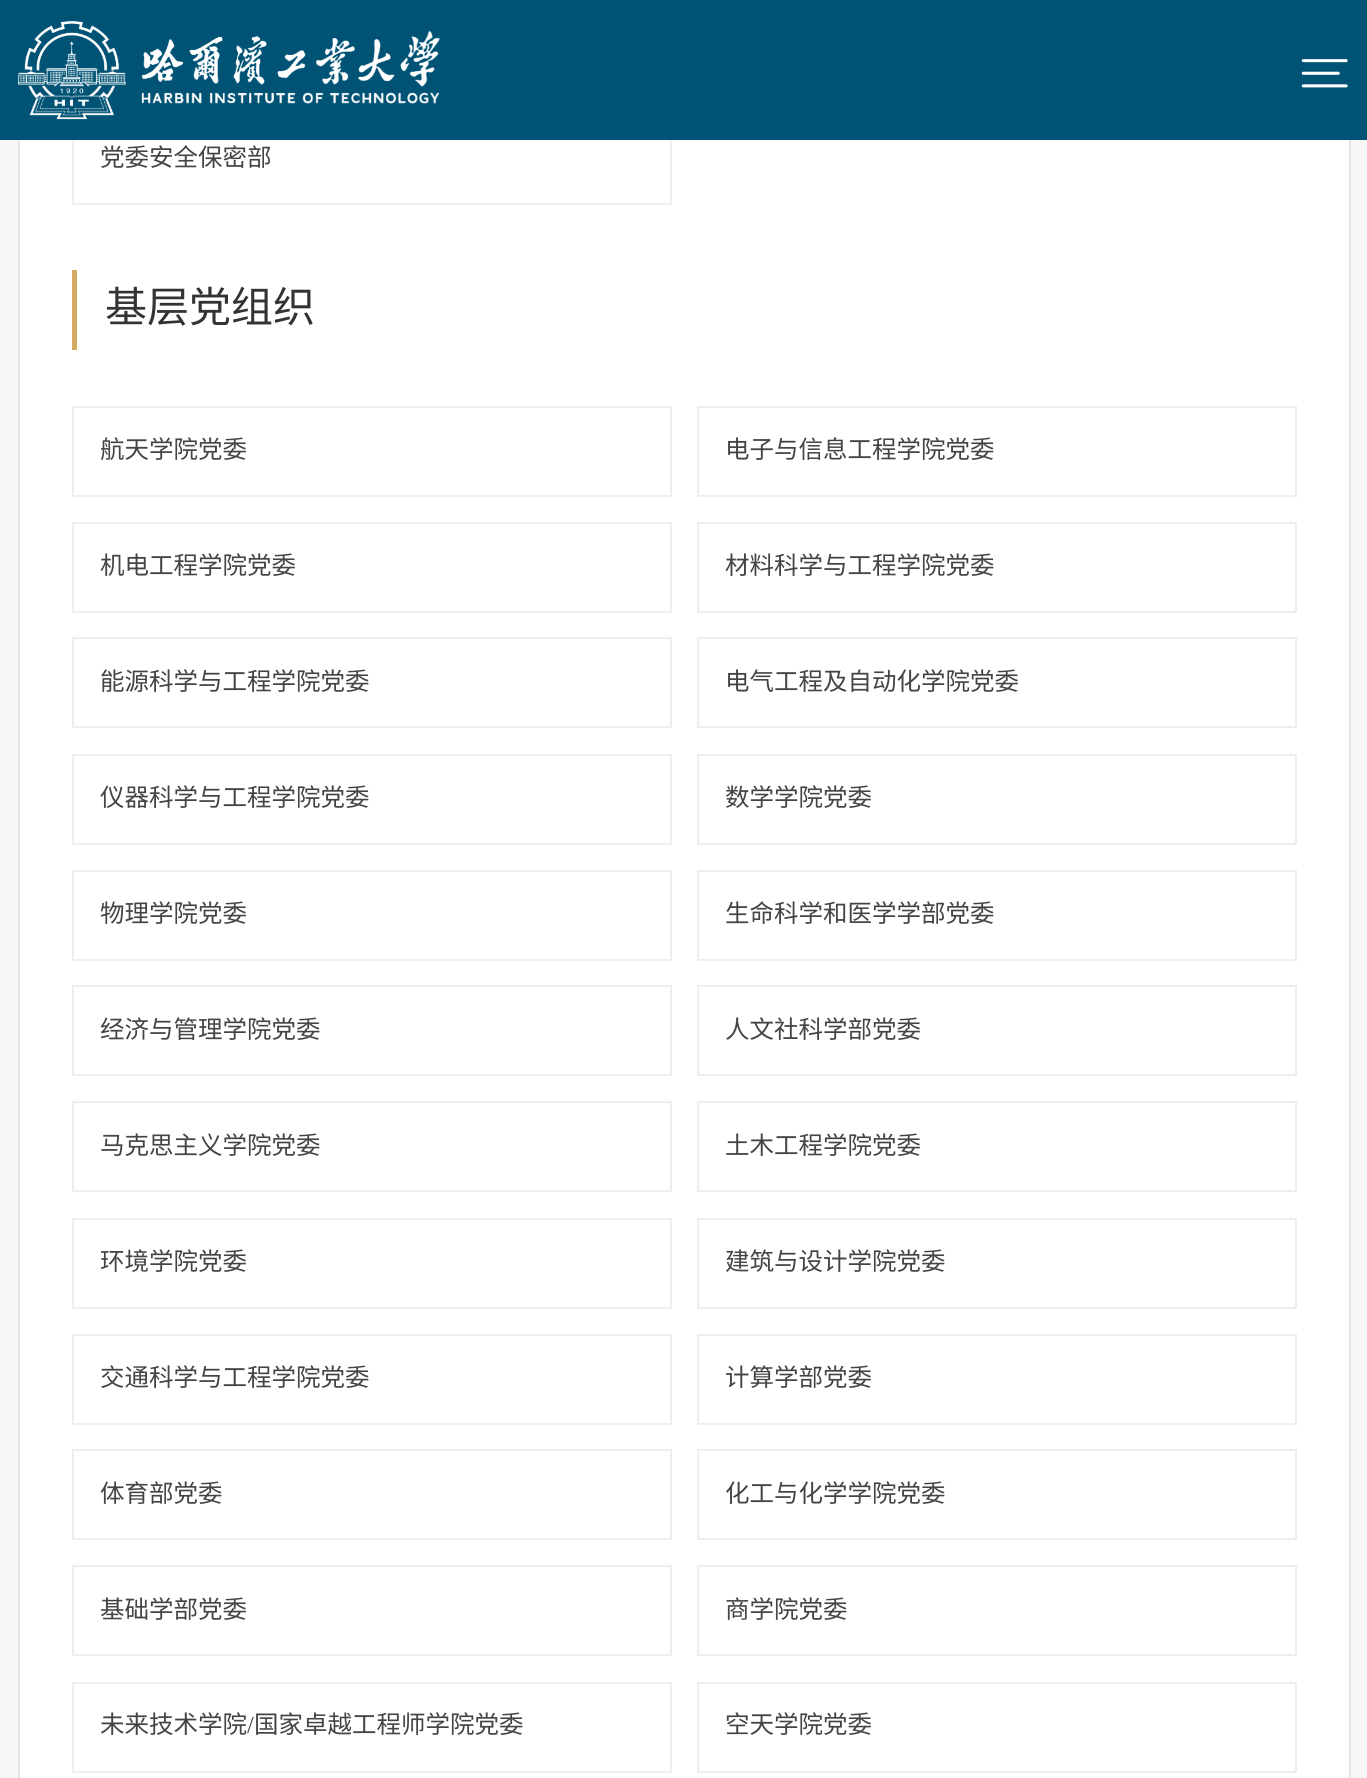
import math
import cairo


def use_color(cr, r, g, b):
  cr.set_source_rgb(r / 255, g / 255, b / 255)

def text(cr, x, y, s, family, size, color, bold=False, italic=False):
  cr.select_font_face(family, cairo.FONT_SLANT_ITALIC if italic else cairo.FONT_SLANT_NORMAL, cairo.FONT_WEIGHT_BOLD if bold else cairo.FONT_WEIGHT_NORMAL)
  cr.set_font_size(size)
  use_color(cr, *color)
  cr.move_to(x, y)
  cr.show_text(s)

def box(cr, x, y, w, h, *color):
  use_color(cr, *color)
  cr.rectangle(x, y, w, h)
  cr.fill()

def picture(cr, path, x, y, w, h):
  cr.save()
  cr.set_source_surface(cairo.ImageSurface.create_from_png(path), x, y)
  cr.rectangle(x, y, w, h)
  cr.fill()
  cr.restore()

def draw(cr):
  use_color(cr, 246, 246, 246)
  cr.paint()
  box(cr, 20, 140, 1329, 1638, 255, 255, 255)
  cr.rectangle(19, -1, 1331, 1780)
  use_color(cr, 229, 229, 229)
  cr.stroke()
  cr.rectangle(73, 115, 598, 89)
  use_color(cr, 238, 238, 238)
  cr.stroke()
  box(cr, 0, 0, 1367, 140, 0, 83, 117)
  picture(cr, "img_01.png", 18, 21, 422, 99)
  picture(cr, "img_02.png", 1301, 59, 47, 29)
  box(cr, 72, 270, 5, 80, 213, 171, 99)
  cr.rectangle(73, 407, 598, 89)
  use_color(cr, 238, 238, 238)
  cr.stroke()
  cr.rectangle(698, 407, 598, 89)
  cr.stroke()
  cr.rectangle(73, 523, 598, 89)
  cr.stroke()
  cr.rectangle(698, 523, 598, 89)
  cr.stroke()
  cr.rectangle(73, 638, 598, 89)
  cr.stroke()
  cr.rectangle(698, 638, 598, 89)
  cr.stroke()
  cr.rectangle(73, 755, 598, 89)
  cr.stroke()
  cr.rectangle(698, 755, 598, 89)
  cr.stroke()
  cr.rectangle(73, 871, 598, 89)
  cr.stroke()
  cr.rectangle(698, 871, 598, 89)
  cr.stroke()
  cr.rectangle(73, 986, 598, 89)
  cr.stroke()
  cr.rectangle(698, 986, 598, 89)
  cr.stroke()
  cr.rectangle(73, 1102, 598, 89)
  cr.stroke()
  cr.rectangle(698, 1102, 598, 89)
  cr.stroke()
  cr.rectangle(73, 1219, 598, 89)
  cr.stroke()
  cr.rectangle(698, 1219, 598, 89)
  cr.stroke()
  cr.rectangle(73, 1335, 598, 89)
  cr.stroke()
  cr.rectangle(698, 1335, 598, 89)
  cr.stroke()
  cr.rectangle(73, 1450, 598, 89)
  cr.stroke()
  cr.rectangle(698, 1450, 598, 89)
  cr.stroke()
  cr.rectangle(73, 1566, 598, 89)
  cr.stroke()
  cr.rectangle(698, 1566, 598, 89)
  cr.stroke()
  cr.rectangle(73, 1683, 598, 89)
  cr.stroke()
  cr.rectangle(698, 1683, 598, 89)
  cr.stroke()
  text(cr, 100, 166, "党委安全保密部", "Noto Sans CJK SC", 24.5, (68, 68, 68))
  text(cr, 105, 322, "基层党组织", "Noto Sans CJK SC", 42, (51, 51, 51))
  text(cr, 100, 458, "航天学院党委", "Noto Sans CJK SC", 24.5, (68, 68, 68))
  text(cr, 725, 458, "电子与信息工程学院党委", "Noto Sans CJK SC", 24.5, (68, 68, 68))
  text(cr, 100, 574, "机电工程学院党委", "Noto Sans CJK SC", 24.5, (68, 68, 68))
  text(cr, 725, 574, "材料科学与工程学院党委", "Noto Sans CJK SC", 24.5, (68, 68, 68))
  text(cr, 100, 690, "能源科学与工程学院党委", "Noto Sans CJK SC", 24.5, (68, 68, 68))
  text(cr, 725, 690, "电气工程及自动化学院党委", "Noto Sans CJK SC", 24.5, (68, 68, 68))
  text(cr, 100, 806, "仪器科学与工程学院党委", "Noto Sans CJK SC", 24.5, (68, 68, 68))
  text(cr, 725, 806, "数学学院党委", "Noto Sans CJK SC", 24.5, (68, 68, 68))
  text(cr, 100, 922, "物理学院党委", "Noto Sans CJK SC", 24.5, (68, 68, 68))
  text(cr, 725, 922, "生命科学和医学学部党委", "Noto Sans CJK SC", 24.5, (68, 68, 68))
  text(cr, 100, 1038, "经济与管理学院党委", "Noto Sans CJK SC", 24.5, (68, 68, 68))
  text(cr, 725, 1038, "人文社科学部党委", "Noto Sans CJK SC", 24.5, (68, 68, 68))
  text(cr, 100, 1154, "马克思主义学院党委", "Noto Sans CJK SC", 24.5, (68, 68, 68))
  text(cr, 725, 1154, "土木工程学院党委", "Noto Sans CJK SC", 24.5, (68, 68, 68))
  text(cr, 100, 1270, "环境学院党委", "Noto Sans CJK SC", 24.5, (68, 68, 68))
  text(cr, 725, 1270, "建筑与设计学院党委", "Noto Sans CJK SC", 24.5, (68, 68, 68))
  text(cr, 100, 1386, "交通科学与工程学院党委", "Noto Sans CJK SC", 24.5, (68, 68, 68))
  text(cr, 725, 1386, "计算学部党委", "Noto Sans CJK SC", 24.5, (68, 68, 68))
  text(cr, 100, 1502, "体育部党委", "Noto Sans CJK SC", 24.5, (68, 68, 68))
  text(cr, 725, 1502, "化工与化学学院党委", "Noto Sans CJK SC", 24.5, (68, 68, 68))
  text(cr, 100, 1618, "基础学部党委", "Noto Sans CJK SC", 24.5, (68, 68, 68))
  text(cr, 725, 1618, "商学院党委", "Noto Sans CJK SC", 24.5, (68, 68, 68))
  text(cr, 100, 1733, "未来技术学院", "Noto Sans CJK SC", 24.5, (68, 68, 68))
  text(cr, 247, 1733, "/", "Liberation Serif", 24.5, (68, 68, 68))
  text(cr, 254, 1733, "国家卓越工程师学院党委", "Noto Sans CJK SC", 24.5, (68, 68, 68))
  text(cr, 725, 1733, "空天学院党委", "Noto Sans CJK SC", 24.5, (68, 68, 68))


surface = cairo.ImageSurface(cairo.FORMAT_RGB24, 1367, 1778)
cr = cairo.Context(surface)
options = cairo.FontOptions()
options.set_hint_metrics(cairo.HINT_METRICS_OFF)
options.set_hint_style(cairo.HINT_STYLE_NONE)
cr.set_font_options(options)
cr.set_miter_limit(4)
draw(cr)
surface.write_to_png("out.png")
